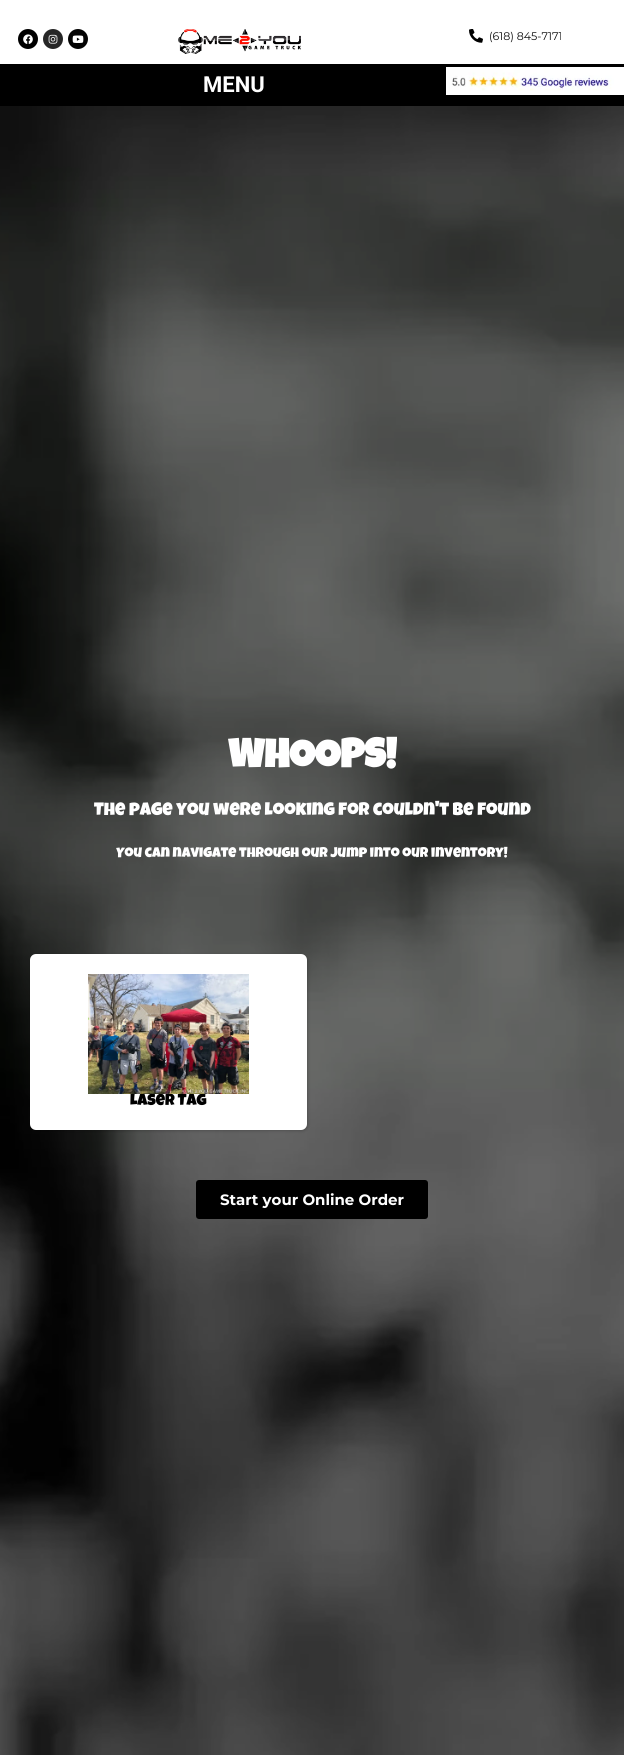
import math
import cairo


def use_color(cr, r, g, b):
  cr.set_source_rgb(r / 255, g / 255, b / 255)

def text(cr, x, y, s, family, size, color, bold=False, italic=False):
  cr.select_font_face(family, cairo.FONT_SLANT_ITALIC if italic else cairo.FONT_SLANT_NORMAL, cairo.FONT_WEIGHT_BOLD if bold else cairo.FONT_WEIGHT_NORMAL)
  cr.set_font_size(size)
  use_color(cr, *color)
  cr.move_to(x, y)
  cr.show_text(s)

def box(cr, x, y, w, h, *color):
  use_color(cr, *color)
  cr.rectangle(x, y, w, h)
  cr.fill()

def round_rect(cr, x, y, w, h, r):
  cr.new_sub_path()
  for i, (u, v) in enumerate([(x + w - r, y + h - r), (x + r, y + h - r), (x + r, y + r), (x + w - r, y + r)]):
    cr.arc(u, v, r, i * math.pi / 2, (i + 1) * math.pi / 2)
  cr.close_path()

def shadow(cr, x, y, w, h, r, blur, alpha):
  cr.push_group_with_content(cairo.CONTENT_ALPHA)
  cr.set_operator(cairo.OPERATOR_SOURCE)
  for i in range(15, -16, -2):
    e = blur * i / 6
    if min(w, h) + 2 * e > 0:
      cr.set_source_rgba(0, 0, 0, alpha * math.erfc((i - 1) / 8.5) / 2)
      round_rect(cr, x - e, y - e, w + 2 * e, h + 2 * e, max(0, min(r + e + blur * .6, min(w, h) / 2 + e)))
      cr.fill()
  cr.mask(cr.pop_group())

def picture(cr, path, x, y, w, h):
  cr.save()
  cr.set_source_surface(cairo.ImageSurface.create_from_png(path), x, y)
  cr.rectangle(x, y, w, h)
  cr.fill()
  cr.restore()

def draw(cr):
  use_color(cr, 255, 255, 255)
  cr.paint()
  use_color(cr, 0, 0, 0)
  cr.arc(28, 39, 10, 0, 2 * math.pi)
  cr.fill()
  picture(cr, "img_01.png", 23, 34, 10, 10)
  use_color(cr, 38, 38, 38)
  cr.arc(53, 39, 10, 0, 2 * math.pi)
  cr.fill()
  picture(cr, "img_02.png", 48, 34, 10, 10)
  use_color(cr, 3, 3, 3)
  cr.arc(78, 39, 10, 0, 2 * math.pi)
  cr.fill()
  picture(cr, "img_03.png", 72, 35, 12, 8)
  picture(cr, "img_04.png", 178, 29, 123, 25)
  picture(cr, "img_05.png", 469, 29, 14, 14)
  box(cr, 0, 64, 624, 42, 0, 0, 0)
  picture(cr, "img_06.png", 446, 67, 178, 28)
  picture(cr, "img_07.png", 0, 106, 624, 1649)
  use_color(cr, 0, 0, 0)
  shadow(cr, 31, 955, 277, 176, 6, 1.5, 0.2)
  use_color(cr, 255, 255, 255)
  round_rect(cr, 30, 954, 277, 176, 6)
  cr.fill()
  use_color(cr, 0, 0, 0)
  round_rect(cr, 196, 1180, 232, 39, 3)
  cr.fill()
  text(cr, 489, 40, "(618) 845-7171", "Montserrat", 11, (13, 13, 13))
  text(cr, 203, 92, "MENU", "Roboto", 22, (255, 255, 255), bold=True)
  text(cr, 228, 767, "WHOOPS!", "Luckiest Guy", 40, (255, 255, 255), bold=True)
  text(cr, 94, 815, "The page you were looking for couldn't be found", "Luckiest Guy", 18, (255, 255, 255))
  text(cr, 116, 857, "You can navigate through our jump into our inventory!", "Luckiest Guy", 14, (255, 255, 255))
  text(cr, 130, 1105, "Laser Tag", "Luckiest Guy", 16, (0, 0, 0))
  picture(cr, "img_08.png", 88, 974, 161, 120)
  text(cr, 220, 1205, "Start your Online Order", "Montserrat", 15, (255, 255, 255), bold=True)


surface = cairo.ImageSurface(cairo.FORMAT_RGB24, 624, 1755)
cr = cairo.Context(surface)
options = cairo.FontOptions()
options.set_hint_metrics(cairo.HINT_METRICS_OFF)
options.set_hint_style(cairo.HINT_STYLE_NONE)
cr.set_font_options(options)
cr.set_miter_limit(4)
draw(cr)
surface.write_to_png("out.png")
